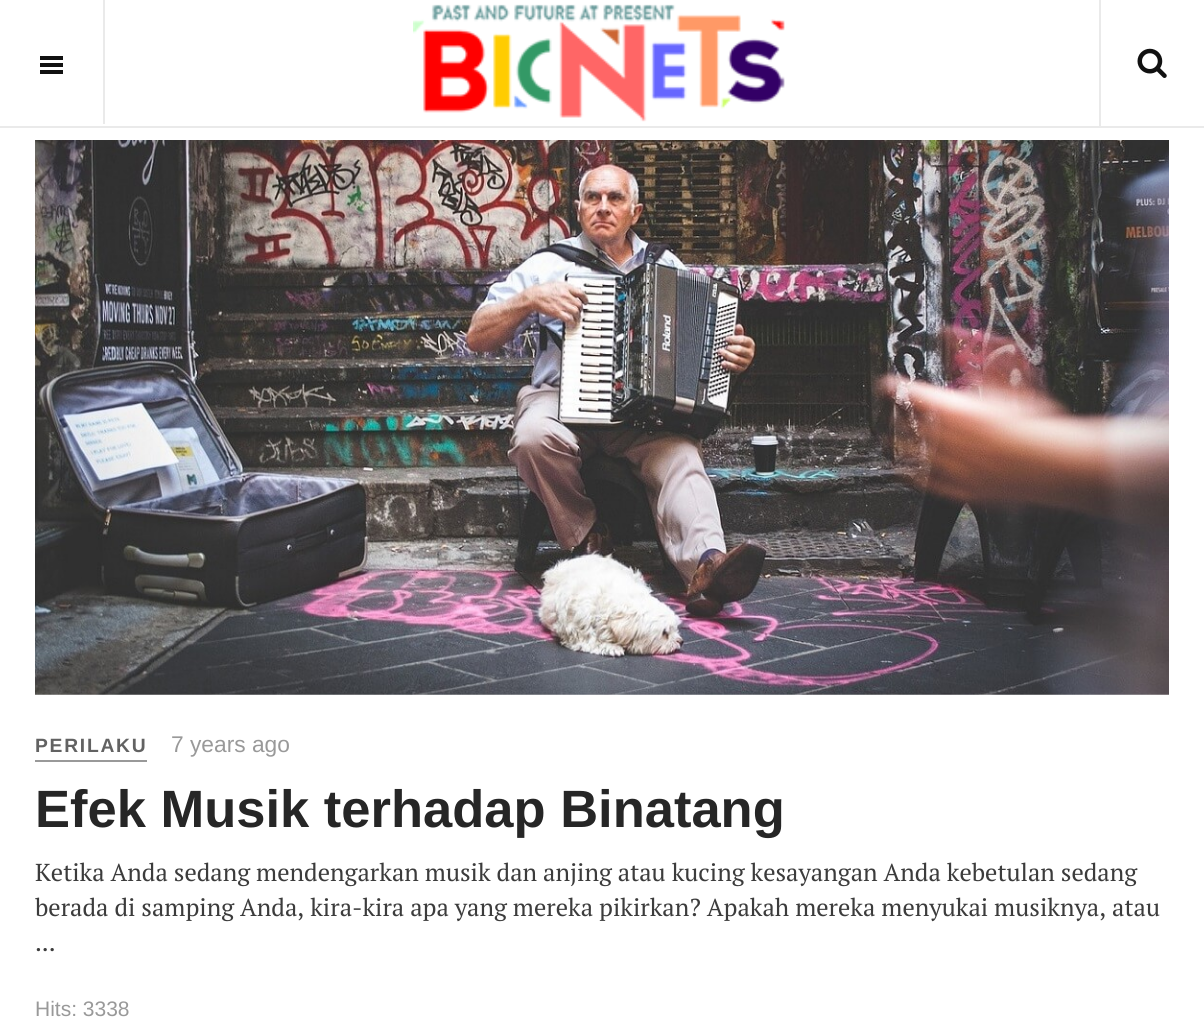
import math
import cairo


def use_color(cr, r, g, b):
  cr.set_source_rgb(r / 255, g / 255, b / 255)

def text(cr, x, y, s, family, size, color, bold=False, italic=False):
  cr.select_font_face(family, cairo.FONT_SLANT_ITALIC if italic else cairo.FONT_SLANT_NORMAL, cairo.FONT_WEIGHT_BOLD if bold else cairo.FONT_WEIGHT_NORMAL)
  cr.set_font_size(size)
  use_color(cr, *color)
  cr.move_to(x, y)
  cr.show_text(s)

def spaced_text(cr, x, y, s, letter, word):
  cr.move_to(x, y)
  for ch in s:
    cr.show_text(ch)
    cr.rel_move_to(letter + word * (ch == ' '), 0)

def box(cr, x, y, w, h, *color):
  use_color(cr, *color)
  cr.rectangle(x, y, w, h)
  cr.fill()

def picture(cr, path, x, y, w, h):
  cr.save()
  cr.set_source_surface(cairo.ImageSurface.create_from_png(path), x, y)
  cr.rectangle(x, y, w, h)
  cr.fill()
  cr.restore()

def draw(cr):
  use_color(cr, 255, 255, 255)
  cr.paint()
  box(cr, 0, 126, 1204, 2, 234, 234, 234)
  box(cr, 103, 0, 2, 124, 234, 234, 234)
  box(cr, 40, 63, 23, 4, 17, 17, 17)
  box(cr, 40, 56, 23, 4, 17, 17, 17)
  box(cr, 40, 70, 23, 4, 17, 17, 17)
  picture(cr, "img_01.png", 413, 4, 372, 118)
  box(cr, 1099, 0, 2, 126, 234, 234, 234)
  picture(cr, "img_02.png", 1137, 48, 30, 30)
  picture(cr, "img_03.png", 35, 140, 1134, 555)
  box(cr, 35, 760, 112, 2, 153, 153, 153)
  cr.select_font_face("Liberation Sans", cairo.FONT_SLANT_NORMAL, cairo.FONT_WEIGHT_BOLD)
  cr.set_font_size(19.25)
  use_color(cr, 98, 98, 98)
  spaced_text(cr, 35, 752, "PERILAKU", 1.75, 0)
  text(cr, 171, 752, "7 years ago", "Liberation Sans", 22.75, (153, 153, 153))
  text(cr, 35, 827, "Efek Musik terhadap Binatang", "Liberation Sans", 52.5, (38, 38, 38), bold=True)
  text(cr, 35, 881, "Ketika Anda sedang mendengarkan musik dan anjing atau kucing kesayangan Anda kebetulan sedang", "PT Serif", 24.5, (60, 60, 60))
  text(cr, 35, 916, "berada di samping Anda, kira-kira apa yang mereka pikirkan? Apakah mereka menyukai musiknya, atau", "PT Serif", 24.5, (60, 60, 60))
  text(cr, 35, 951, "...", "PT Serif", 24.5, (60, 60, 60))
  text(cr, 35, 1016, "Hits: 3338", "Liberation Sans", 21, (153, 153, 153))


surface = cairo.ImageSurface(cairo.FORMAT_RGB24, 1204, 1036)
cr = cairo.Context(surface)
options = cairo.FontOptions()
options.set_hint_metrics(cairo.HINT_METRICS_OFF)
options.set_hint_style(cairo.HINT_STYLE_NONE)
cr.set_font_options(options)
cr.set_miter_limit(4)
draw(cr)
surface.write_to_png("out.png")
